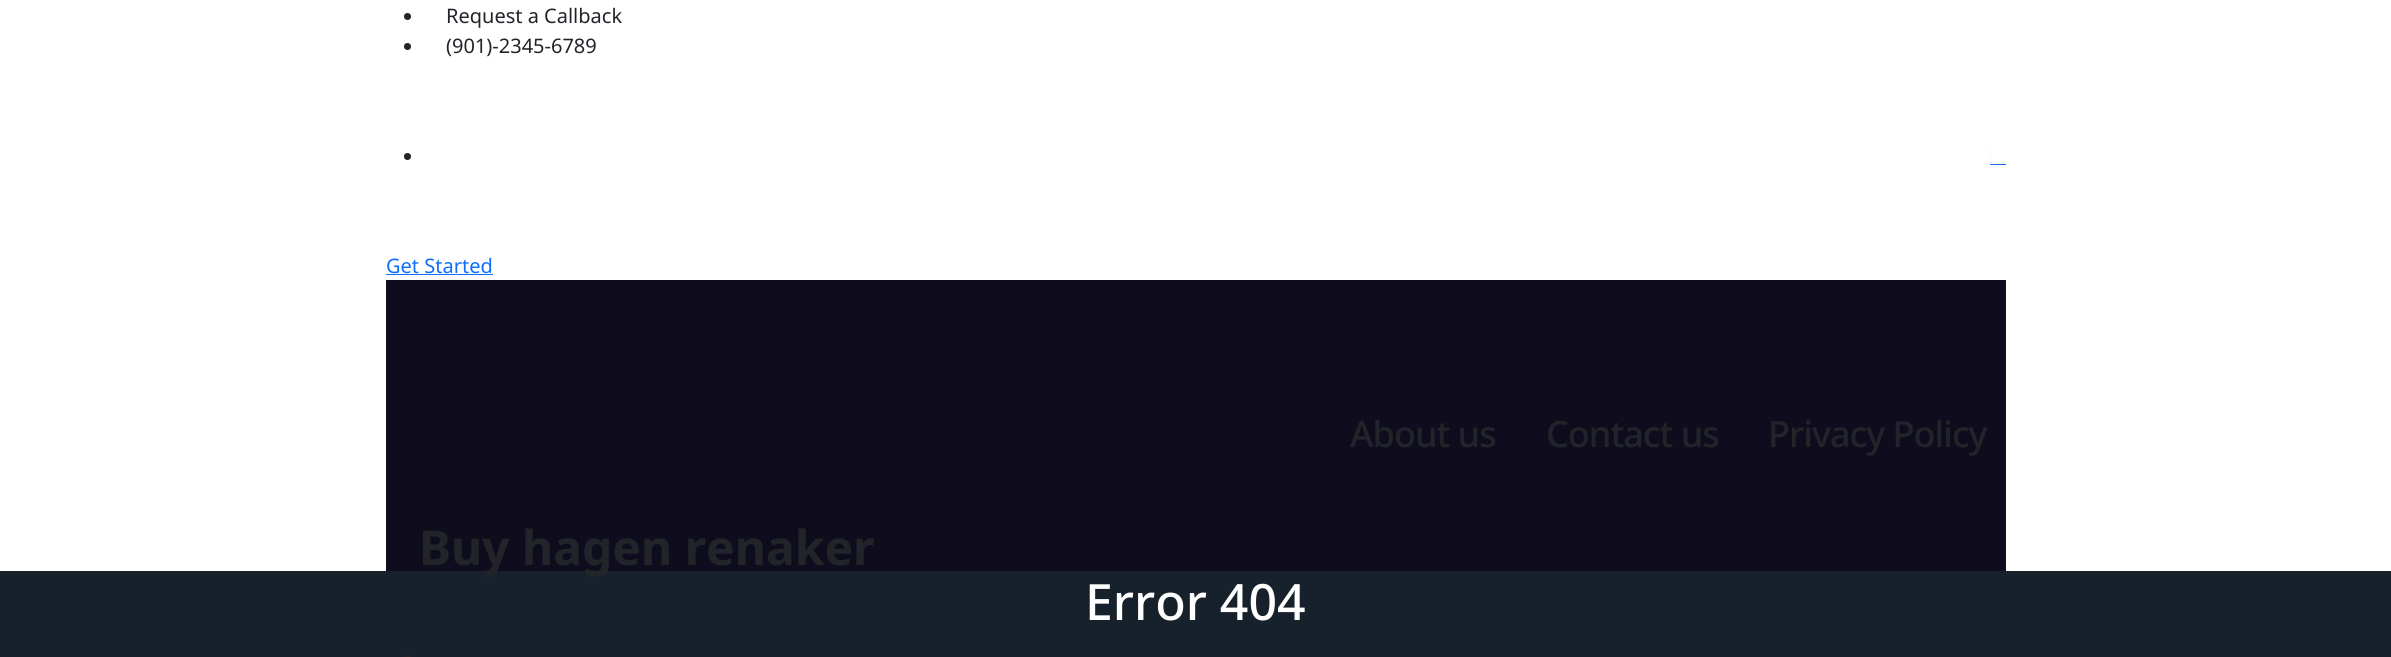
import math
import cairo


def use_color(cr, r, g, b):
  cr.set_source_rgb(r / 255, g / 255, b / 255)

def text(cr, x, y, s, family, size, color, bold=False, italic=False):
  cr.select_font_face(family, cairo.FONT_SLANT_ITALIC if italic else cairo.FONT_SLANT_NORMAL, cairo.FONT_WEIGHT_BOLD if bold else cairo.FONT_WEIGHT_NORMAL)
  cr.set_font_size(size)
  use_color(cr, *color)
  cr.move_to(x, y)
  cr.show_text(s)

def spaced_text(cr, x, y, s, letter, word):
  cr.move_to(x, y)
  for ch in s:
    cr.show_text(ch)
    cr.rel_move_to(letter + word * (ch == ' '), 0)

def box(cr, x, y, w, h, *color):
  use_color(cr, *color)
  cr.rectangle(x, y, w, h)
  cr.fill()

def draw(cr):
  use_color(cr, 255, 255, 255)
  cr.paint()
  box(cr, 1990, 146, 1, 20, 250, 250, 250)
  use_color(cr, 33, 37, 41)
  cr.arc(407.5, 16.5, 3.5, 0, 2 * math.pi)
  cr.fill()
  cr.arc(407.5, 46.5, 3.5, 0, 2 * math.pi)
  cr.fill()
  cr.arc(407.5, 156.5, 3.5, 0, 2 * math.pi)
  cr.fill()
  box(cr, 1990, 164, 16, 1, 13, 110, 253)
  box(cr, 1990, 164, 1, 1, 50, 130, 249)
  box(cr, 386, 274, 107, 1, 13, 110, 253)
  box(cr, 386, 280, 1620, 291, 15, 13, 29)
  box(cr, 0, 571, 2391, 86, 23, 33, 44)
  use_color(cr, 33, 37, 41)
  cr.arc(407.5, 657.5, 3.5, 0, 2 * math.pi)
  cr.fill()
  text(cr, 446, 23, "Request a Callback", "Noto Sans", 20, (33, 37, 41))
  text(cr, 446, 53, "(901)-2345-6789", "Noto Sans", 20, (33, 37, 41))
  text(cr, 386, 273, "Get Started", "Noto Sans", 20, (13, 110, 253))
  cr.select_font_face("Noto Sans Medium")
  cr.set_font_size(36)
  use_color(cr, 33, 37, 41)
  spaced_text(cr, 1350, 447, "About us", -1, 0)
  spaced_text(cr, 1546, 447, "Contact us", -1, 0)
  spaced_text(cr, 1768, 447, "Privacy Policy", -1, 0)
  text(cr, 419, 565, "Buy hagen renaker", "Noto Sans", 48, (33, 37, 41), bold=True)
  text(cr, 1085, 620, "Error 404", "Noto Sans Medium", 50, (255, 255, 255))


surface = cairo.ImageSurface(cairo.FORMAT_RGB24, 2391, 657)
cr = cairo.Context(surface)
options = cairo.FontOptions()
options.set_hint_metrics(cairo.HINT_METRICS_OFF)
options.set_hint_style(cairo.HINT_STYLE_NONE)
cr.set_font_options(options)
cr.set_miter_limit(4)
draw(cr)
surface.write_to_png("out.png")
